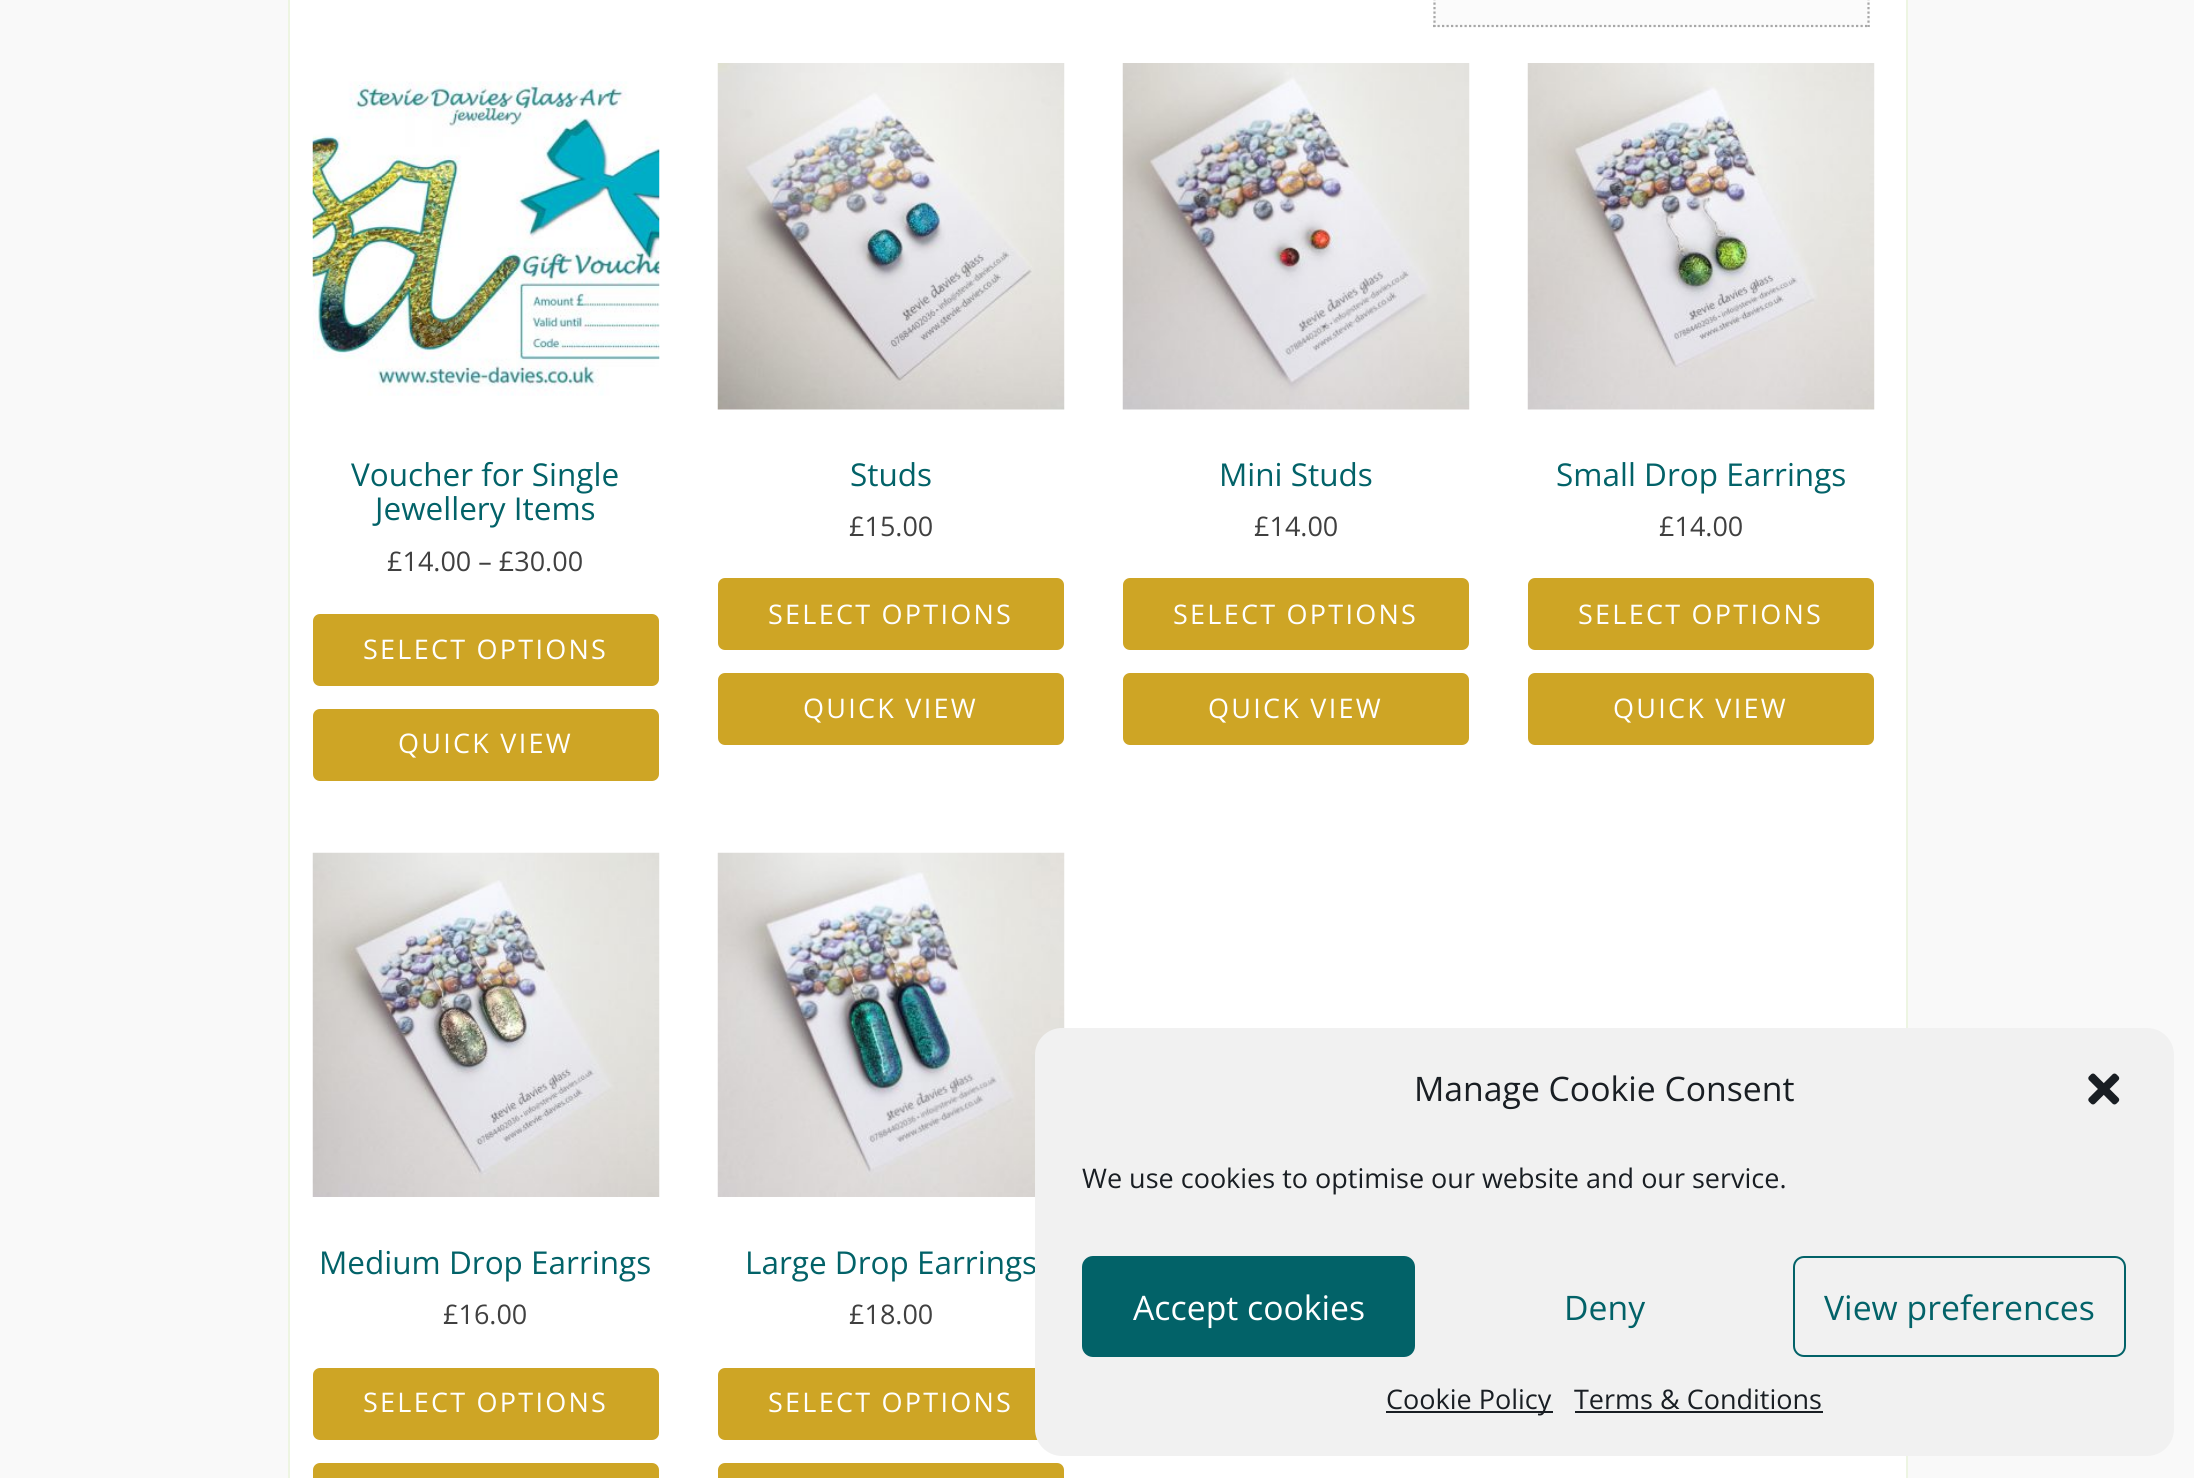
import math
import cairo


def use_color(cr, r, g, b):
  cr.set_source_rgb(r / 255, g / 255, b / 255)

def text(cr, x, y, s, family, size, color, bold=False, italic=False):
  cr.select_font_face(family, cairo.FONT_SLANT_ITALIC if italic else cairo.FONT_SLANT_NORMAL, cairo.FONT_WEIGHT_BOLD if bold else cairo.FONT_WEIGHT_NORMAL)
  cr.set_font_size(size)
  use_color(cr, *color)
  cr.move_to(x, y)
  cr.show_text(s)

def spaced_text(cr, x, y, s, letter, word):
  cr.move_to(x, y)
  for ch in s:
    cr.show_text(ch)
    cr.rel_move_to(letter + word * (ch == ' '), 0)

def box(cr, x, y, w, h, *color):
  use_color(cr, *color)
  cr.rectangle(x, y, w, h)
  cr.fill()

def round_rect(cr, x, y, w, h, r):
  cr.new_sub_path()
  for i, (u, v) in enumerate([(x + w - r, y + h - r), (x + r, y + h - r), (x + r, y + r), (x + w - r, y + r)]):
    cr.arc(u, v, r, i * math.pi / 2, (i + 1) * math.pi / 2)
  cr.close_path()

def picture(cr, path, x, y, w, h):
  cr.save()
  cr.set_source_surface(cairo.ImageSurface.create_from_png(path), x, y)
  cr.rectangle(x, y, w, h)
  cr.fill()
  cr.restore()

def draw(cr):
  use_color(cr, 249, 249, 249)
  cr.paint()
  use_color(cr, 255, 255, 255)
  cr.rectangle(289, -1, 1618, 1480)
  cr.fill_preserve()
  use_color(cr, 237, 245, 226)
  cr.stroke()
  box(cr, 1433, 0, 437, 27, 251, 251, 251)
  cr.new_path()
  cr.move_to(1868.5, -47)
  cr.line_to(1868.5, 27)
  use_color(cr, 167, 167, 167)
  cr.set_line_width(2.2)
  cr.set_dash([2.25, 2.25])
  cr.stroke()
  cr.new_path()
  cr.move_to(1433, 26)
  cr.line_to(1870, 26)
  cr.stroke()
  cr.new_path()
  cr.move_to(1434.5, -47)
  cr.line_to(1434.5, 27)
  cr.stroke()
  picture(cr, "img_01.png", 312, 81, 348, 315)
  use_color(cr, 206, 165, 37)
  round_rect(cr, 313, 614, 346, 72, 7)
  cr.fill()
  round_rect(cr, 313, 709, 346, 72, 7)
  cr.fill()
  picture(cr, "img_02.png", 717, 63, 348, 347)
  round_rect(cr, 718, 578, 346, 72, 7)
  cr.fill()
  round_rect(cr, 718, 673, 346, 72, 7)
  cr.fill()
  picture(cr, "img_03.png", 1122, 63, 348, 347)
  round_rect(cr, 1123, 578, 346, 72, 7)
  cr.fill()
  round_rect(cr, 1123, 673, 346, 72, 7)
  cr.fill()
  picture(cr, "img_04.png", 1527, 63, 348, 347)
  round_rect(cr, 1528, 578, 346, 72, 7)
  cr.fill()
  round_rect(cr, 1528, 673, 346, 72, 7)
  cr.fill()
  picture(cr, "img_05.png", 312, 852, 348, 345)
  round_rect(cr, 313, 1368, 346, 72, 7)
  cr.fill()
  round_rect(cr, 313, 1463, 346, 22, 7)
  cr.fill()
  picture(cr, "img_06.png", 717, 852, 348, 345)
  round_rect(cr, 718, 1368, 346, 72, 7)
  cr.fill()
  round_rect(cr, 718, 1463, 346, 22, 7)
  cr.fill()
  text(cr, 351, 486, "Voucher for Single", "Open Sans", 31.5, (2, 98, 104))
  text(cr, 375, 520, "Jewellery Items", "Open Sans", 31.5, (2, 98, 104))
  text(cr, 387, 571, "£14.00 – £30.00", "Open Sans", 27, (64, 64, 64))
  use_color(cr, 255, 255, 255)
  spaced_text(cr, 363, 659, "SELECT OPTIONS", 2.25, 0)
  spaced_text(cr, 398, 753, "QUICK VIEW", 2.25, 0)
  text(cr, 850, 486, "Studs", "Open Sans", 31.5, (2, 98, 104))
  text(cr, 849, 536, "£15.00", "Open Sans", 27, (64, 64, 64))
  use_color(cr, 255, 255, 255)
  spaced_text(cr, 768, 624, "SELECT OPTIONS", 2.25, 0)
  spaced_text(cr, 803, 718, "QUICK VIEW", 2.25, 0)
  text(cr, 1219, 486, "Mini Studs", "Open Sans", 31.5, (2, 98, 104))
  text(cr, 1254, 536, "£14.00", "Open Sans", 27, (64, 64, 64))
  use_color(cr, 255, 255, 255)
  spaced_text(cr, 1173, 624, "SELECT OPTIONS", 2.25, 0)
  spaced_text(cr, 1208, 718, "QUICK VIEW", 2.25, 0)
  text(cr, 1556, 486, "Small Drop Earrings", "Open Sans", 31.5, (2, 98, 104))
  text(cr, 1659, 536, "£14.00", "Open Sans", 27, (64, 64, 64))
  use_color(cr, 255, 255, 255)
  spaced_text(cr, 1578, 624, "SELECT OPTIONS", 2.25, 0)
  spaced_text(cr, 1613, 718, "QUICK VIEW", 2.25, 0)
  text(cr, 319, 1274, "Medium Drop Earrings", "Open Sans", 31.5, (2, 98, 104))
  text(cr, 443, 1324, "£16.00", "Open Sans", 27, (64, 64, 64))
  use_color(cr, 255, 255, 255)
  spaced_text(cr, 363, 1412, "SELECT OPTIONS", 2.25, 0)
  text(cr, 745, 1274, "Large Drop Earrings", "Open Sans", 31.5, (2, 98, 104))
  text(cr, 849, 1324, "£18.00", "Open Sans", 27, (64, 64, 64))
  use_color(cr, 255, 255, 255)
  spaced_text(cr, 768, 1412, "SELECT OPTIONS", 2.25, 0)
  use_color(cr, 241, 241, 241)
  round_rect(cr, 1036, 1029, 1137, 426, 26)
  cr.fill_preserve()
  cr.set_line_width(2)
  cr.set_dash([])
  cr.stroke()
  text(cr, 1414, 1101, "Manage Cookie Consent", "Open Sans", 33.75, (25, 30, 35))
  picture(cr, "img_07.png", 2088, 1073, 32, 32)
  text(cr, 1082, 1188, "We use cookies to optimise our website and our service.", "Open Sans", 27, (25, 30, 35))
  use_color(cr, 2, 98, 104)
  round_rect(cr, 1083, 1257, 331, 99, 10)
  cr.fill_preserve()
  cr.stroke()
  text(cr, 1133, 1320, "Accept cookies", "Open Sans", 33.75, (255, 255, 255))
  text(cr, 1564, 1320, "Deny", "Open Sans", 33.75, (2, 98, 104))
  round_rect(cr, 1794, 1257, 331, 99, 10)
  cr.stroke()
  text(cr, 1824, 1320, "View preferences", "Open Sans", 33.75, (2, 98, 104))
  box(cr, 1386, 1411, 167, 2, 25, 30, 35)
  text(cr, 1386, 1409, "Cookie Policy", "Open Sans", 27, (25, 30, 35))
  text(cr, 1574, 1409, "Terms & Conditions", "Open Sans", 27, (25, 30, 35))
  box(cr, 1575, 1411, 248, 2, 25, 30, 35)


surface = cairo.ImageSurface(cairo.FORMAT_RGB24, 2194, 1478)
cr = cairo.Context(surface)
options = cairo.FontOptions()
options.set_hint_metrics(cairo.HINT_METRICS_OFF)
options.set_hint_style(cairo.HINT_STYLE_NONE)
cr.set_font_options(options)
cr.set_miter_limit(4)
draw(cr)
surface.write_to_png("out.png")
